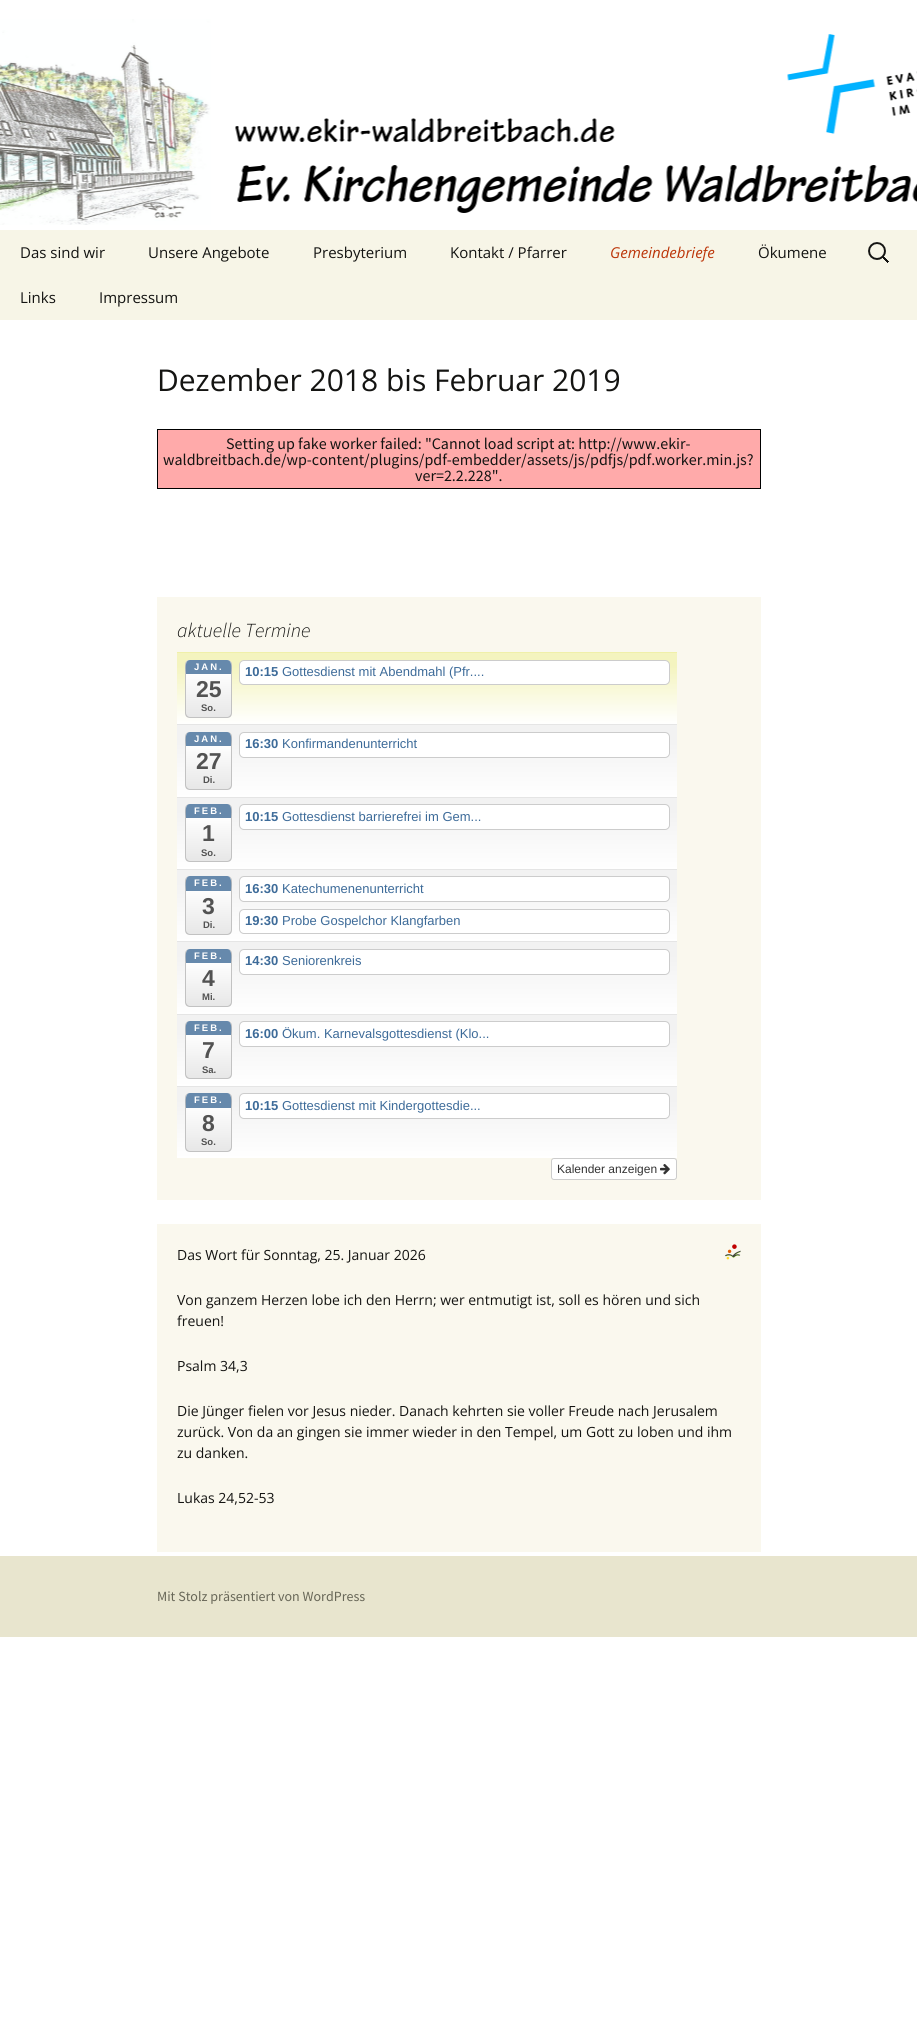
import math
import cairo


def use_color(cr, r, g, b):
  cr.set_source_rgb(r / 255, g / 255, b / 255)

def text(cr, x, y, s, family, size, color, bold=False, italic=False):
  cr.select_font_face(family, cairo.FONT_SLANT_ITALIC if italic else cairo.FONT_SLANT_NORMAL, cairo.FONT_WEIGHT_BOLD if bold else cairo.FONT_WEIGHT_NORMAL)
  cr.set_font_size(size)
  use_color(cr, *color)
  cr.move_to(x, y)
  cr.show_text(s)

def spaced_text(cr, x, y, s, letter, word):
  cr.move_to(x, y)
  for ch in s:
    cr.show_text(ch)
    cr.rel_move_to(letter + word * (ch == ' '), 0)

def box(cr, x, y, w, h, *color):
  use_color(cr, *color)
  cr.rectangle(x, y, w, h)
  cr.fill()

def round_rect(cr, x, y, w, h, r):
  cr.new_sub_path()
  for i, (u, v) in enumerate([(x + w - r, y + h - r), (x + r, y + h - r), (x + r, y + r), (x + w - r, y + r)]):
    cr.arc(u, v, r, i * math.pi / 2, (i + 1) * math.pi / 2)
  cr.close_path()

def picture(cr, path, x, y, w, h):
  cr.save()
  cr.set_source_surface(cairo.ImageSurface.create_from_png(path), x, y)
  cr.rectangle(x, y, w, h)
  cr.fill()
  cr.restore()

def draw(cr):
  use_color(cr, 255, 255, 255)
  cr.paint()
  picture(cr, "img_01.png", 0, 19, 917, 206)
  box(cr, 0, 230, 917, 90, 247, 245, 231)
  picture(cr, "img_02.png", 868, 242, 21, 21)
  cr.rectangle(157.5, 429.5, 603, 59)
  use_color(cr, 0, 0, 0)
  cr.set_line_width(1)
  cr.stroke()
  box(cr, 158, 430, 602, 58, 255, 170, 170)
  box(cr, 157, 597, 604, 603, 250, 248, 238)
  gradient = cairo.LinearGradient(427, 653, 427, 724)
  gradient.add_color_stop_rgba(0, 0.957, 0.957, 0.749, 1)
  gradient.add_color_stop_rgba(0.18, 0.957, 0.957, 0.749, 1)
  gradient.add_color_stop_rgba(1, 1, 1, 1, 1)
  cr.set_source(gradient)
  cr.rectangle(177, 653, 500, 71)
  cr.fill()
  box(cr, 177, 652, 500, 1, 240, 240, 169)
  cr.save()
  round_rect(cr, 185, 660, 47, 58, 5)
  cr.clip()
  gradient = cairo.LinearGradient(209, 660, 209, 717)
  gradient.add_color_stop_rgba(0, 1, 1, 1, 1)
  gradient.add_color_stop_rgba(0.21, 1, 1, 1, 1)
  gradient.add_color_stop_rgba(1, 0.906, 0.906, 0.906, 1)
  cr.set_source(gradient)
  cr.rectangle(186, 660, 45, 57)
  cr.fill()
  cr.restore()
  use_color(cr, 194, 194, 194)
  cr.set_fill_rule(cairo.FILL_RULE_EVEN_ODD)
  cr.new_path()
  cr.move_to(190, 660)
  cr.line_to(227, 660)
  cr.curve_to(230, 660, 232, 662, 232, 665)
  cr.line_to(232, 713)
  cr.curve_to(232, 716, 230, 718, 227, 718)
  cr.line_to(190, 718)
  cr.curve_to(187, 718, 185, 716, 185, 713)
  cr.line_to(185, 665)
  cr.curve_to(185, 662, 187, 660, 190, 660)
  cr.close_path()
  cr.move_to(190, 660)
  cr.line_to(227, 660)
  cr.curve_to(229, 660, 231, 662, 231, 665)
  cr.line_to(231, 713)
  cr.curve_to(231, 715, 229, 717, 227, 717)
  cr.line_to(190, 717)
  cr.curve_to(188, 717, 186, 715, 186, 713)
  cr.line_to(186, 665)
  cr.curve_to(186, 662, 188, 660, 190, 660)
  cr.close_path()
  cr.fill()
  use_color(cr, 102, 137, 172)
  cr.set_fill_rule(cairo.FILL_RULE_WINDING)
  cr.new_path()
  cr.move_to(190, 660)
  cr.curve_to(184, 660, 186, 671, 186, 674)
  cr.line_to(231, 674)
  cr.curve_to(231, 671, 233, 660, 227, 660)
  cr.close_path()
  cr.fill()
  use_color(cr, 255, 255, 255)
  round_rect(cr, 239.5, 660.5, 430, 24, 4.5)
  cr.fill_preserve()
  use_color(cr, 204, 204, 204)
  cr.stroke()
  gradient = cairo.LinearGradient(427, 725, 427, 797)
  gradient.add_color_stop_rgba(0, 0.949, 0.949, 0.949, 1)
  gradient.add_color_stop_rgba(0.18, 0.949, 0.949, 0.949, 1)
  gradient.add_color_stop_rgba(1, 1, 1, 1, 1)
  cr.set_source(gradient)
  cr.rectangle(177, 725, 500, 72)
  cr.fill()
  box(cr, 177, 724, 500, 1, 229, 229, 229)
  cr.save()
  round_rect(cr, 185, 732, 47, 58, 5)
  cr.clip()
  gradient = cairo.LinearGradient(209, 732, 209, 789)
  gradient.add_color_stop_rgba(0, 1, 1, 1, 1)
  gradient.add_color_stop_rgba(0.21, 1, 1, 1, 1)
  gradient.add_color_stop_rgba(1, 0.906, 0.906, 0.906, 1)
  cr.set_source(gradient)
  cr.rectangle(186, 732, 45, 57)
  cr.fill()
  cr.restore()
  use_color(cr, 194, 194, 194)
  cr.set_fill_rule(cairo.FILL_RULE_EVEN_ODD)
  cr.new_path()
  cr.move_to(190, 732)
  cr.line_to(227, 732)
  cr.curve_to(230, 732, 232, 734, 232, 737)
  cr.line_to(232, 785)
  cr.curve_to(232, 788, 230, 790, 227, 790)
  cr.line_to(190, 790)
  cr.curve_to(187, 790, 185, 788, 185, 785)
  cr.line_to(185, 737)
  cr.curve_to(185, 734, 187, 732, 190, 732)
  cr.close_path()
  cr.move_to(190, 732)
  cr.line_to(227, 732)
  cr.curve_to(229, 732, 231, 734, 231, 737)
  cr.line_to(231, 785)
  cr.curve_to(231, 787, 229, 789, 227, 789)
  cr.line_to(190, 789)
  cr.curve_to(188, 789, 186, 787, 186, 785)
  cr.line_to(186, 737)
  cr.curve_to(186, 734, 188, 732, 190, 732)
  cr.close_path()
  cr.fill()
  use_color(cr, 102, 137, 172)
  cr.set_fill_rule(cairo.FILL_RULE_WINDING)
  cr.new_path()
  cr.move_to(190, 732)
  cr.curve_to(184, 732, 186, 743, 186, 746)
  cr.line_to(231, 746)
  cr.curve_to(231, 743, 233, 732, 227, 732)
  cr.close_path()
  cr.fill()
  use_color(cr, 255, 255, 255)
  round_rect(cr, 239.5, 732.5, 430, 25, 4.5)
  cr.fill_preserve()
  use_color(cr, 204, 204, 204)
  cr.stroke()
  gradient = cairo.LinearGradient(427, 798, 427, 869)
  gradient.add_color_stop_rgba(0, 0.949, 0.949, 0.949, 1)
  gradient.add_color_stop_rgba(0.18, 0.949, 0.949, 0.949, 1)
  gradient.add_color_stop_rgba(1, 1, 1, 1, 1)
  cr.set_source(gradient)
  cr.rectangle(177, 798, 500, 71)
  cr.fill()
  box(cr, 177, 797, 500, 1, 229, 229, 229)
  cr.save()
  round_rect(cr, 185, 804, 47, 58, 5)
  cr.clip()
  gradient = cairo.LinearGradient(209, 804, 209, 861)
  gradient.add_color_stop_rgba(0, 1, 1, 1, 1)
  gradient.add_color_stop_rgba(0.21, 1, 1, 1, 1)
  gradient.add_color_stop_rgba(1, 0.906, 0.906, 0.906, 1)
  cr.set_source(gradient)
  cr.rectangle(186, 804, 45, 57)
  cr.fill()
  cr.restore()
  use_color(cr, 194, 194, 194)
  cr.set_fill_rule(cairo.FILL_RULE_EVEN_ODD)
  cr.new_path()
  cr.move_to(190, 804)
  cr.line_to(227, 804)
  cr.curve_to(230, 804, 232, 806, 232, 809)
  cr.line_to(232, 857)
  cr.curve_to(232, 860, 230, 862, 227, 862)
  cr.line_to(190, 862)
  cr.curve_to(187, 862, 185, 860, 185, 857)
  cr.line_to(185, 809)
  cr.curve_to(185, 806, 187, 804, 190, 804)
  cr.close_path()
  cr.move_to(190, 804)
  cr.line_to(227, 804)
  cr.curve_to(229, 804, 231, 806, 231, 809)
  cr.line_to(231, 857)
  cr.curve_to(231, 859, 229, 861, 227, 861)
  cr.line_to(190, 861)
  cr.curve_to(188, 861, 186, 859, 186, 857)
  cr.line_to(186, 809)
  cr.curve_to(186, 806, 188, 804, 190, 804)
  cr.close_path()
  cr.fill()
  use_color(cr, 102, 137, 172)
  cr.set_fill_rule(cairo.FILL_RULE_WINDING)
  cr.new_path()
  cr.move_to(190, 804)
  cr.curve_to(184, 804, 186, 815, 186, 818)
  cr.line_to(231, 818)
  cr.curve_to(231, 815, 233, 804, 227, 804)
  cr.close_path()
  cr.fill()
  use_color(cr, 255, 255, 255)
  round_rect(cr, 239.5, 804.5, 430, 25, 4.5)
  cr.fill_preserve()
  use_color(cr, 204, 204, 204)
  cr.stroke()
  gradient = cairo.LinearGradient(427, 870, 427, 941)
  gradient.add_color_stop_rgba(0, 0.949, 0.949, 0.949, 1)
  gradient.add_color_stop_rgba(0.18, 0.949, 0.949, 0.949, 1)
  gradient.add_color_stop_rgba(1, 1, 1, 1, 1)
  cr.set_source(gradient)
  cr.rectangle(177, 870, 500, 71)
  cr.fill()
  box(cr, 177, 869, 500, 1, 229, 229, 229)
  cr.save()
  round_rect(cr, 185, 876, 47, 59, 5)
  cr.clip()
  gradient = cairo.LinearGradient(209, 876, 209, 934)
  gradient.add_color_stop_rgba(0, 1, 1, 1, 1)
  gradient.add_color_stop_rgba(0.2, 1, 1, 1, 1)
  gradient.add_color_stop_rgba(1, 0.906, 0.906, 0.906, 1)
  cr.set_source(gradient)
  cr.rectangle(186, 876, 45, 58)
  cr.fill()
  cr.restore()
  use_color(cr, 194, 194, 194)
  cr.set_fill_rule(cairo.FILL_RULE_EVEN_ODD)
  cr.new_path()
  cr.move_to(190, 876)
  cr.line_to(227, 876)
  cr.curve_to(230, 876, 232, 878, 232, 881)
  cr.line_to(232, 930)
  cr.curve_to(232, 933, 230, 935, 227, 935)
  cr.line_to(190, 935)
  cr.curve_to(187, 935, 185, 933, 185, 930)
  cr.line_to(185, 881)
  cr.curve_to(185, 878, 187, 876, 190, 876)
  cr.close_path()
  cr.move_to(190, 876)
  cr.line_to(227, 876)
  cr.curve_to(229, 876, 231, 878, 231, 881)
  cr.line_to(231, 930)
  cr.curve_to(231, 932, 229, 934, 227, 934)
  cr.line_to(190, 934)
  cr.curve_to(188, 934, 186, 932, 186, 930)
  cr.line_to(186, 881)
  cr.curve_to(186, 878, 188, 876, 190, 876)
  cr.close_path()
  cr.fill()
  use_color(cr, 102, 137, 172)
  cr.set_fill_rule(cairo.FILL_RULE_WINDING)
  cr.new_path()
  cr.move_to(190, 876)
  cr.curve_to(184, 876, 186, 888, 186, 891)
  cr.line_to(231, 891)
  cr.curve_to(231, 888, 233, 876, 227, 876)
  cr.close_path()
  cr.fill()
  use_color(cr, 255, 255, 255)
  round_rect(cr, 239.5, 876.5, 430, 25, 4.5)
  cr.fill_preserve()
  use_color(cr, 204, 204, 204)
  cr.stroke()
  use_color(cr, 255, 255, 255)
  round_rect(cr, 239.5, 909.5, 430, 24, 4.5)
  cr.fill_preserve()
  use_color(cr, 204, 204, 204)
  cr.stroke()
  gradient = cairo.LinearGradient(427, 942, 427, 1014)
  gradient.add_color_stop_rgba(0, 0.949, 0.949, 0.949, 1)
  gradient.add_color_stop_rgba(0.18, 0.949, 0.949, 0.949, 1)
  gradient.add_color_stop_rgba(1, 1, 1, 1, 1)
  cr.set_source(gradient)
  cr.rectangle(177, 942, 500, 72)
  cr.fill()
  box(cr, 177, 941, 500, 1, 229, 229, 229)
  cr.save()
  round_rect(cr, 185, 949, 47, 58, 5)
  cr.clip()
  gradient = cairo.LinearGradient(209, 949, 209, 1006)
  gradient.add_color_stop_rgba(0, 1, 1, 1, 1)
  gradient.add_color_stop_rgba(0.21, 1, 1, 1, 1)
  gradient.add_color_stop_rgba(1, 0.906, 0.906, 0.906, 1)
  cr.set_source(gradient)
  cr.rectangle(186, 949, 45, 57)
  cr.fill()
  cr.restore()
  use_color(cr, 194, 194, 194)
  cr.set_fill_rule(cairo.FILL_RULE_EVEN_ODD)
  cr.new_path()
  cr.move_to(190, 949)
  cr.line_to(227, 949)
  cr.curve_to(230, 949, 232, 951, 232, 954)
  cr.line_to(232, 1002)
  cr.curve_to(232, 1005, 230, 1007, 227, 1007)
  cr.line_to(190, 1007)
  cr.curve_to(187, 1007, 185, 1005, 185, 1002)
  cr.line_to(185, 954)
  cr.curve_to(185, 951, 187, 949, 190, 949)
  cr.close_path()
  cr.move_to(190, 949)
  cr.line_to(227, 949)
  cr.curve_to(229, 949, 231, 951, 231, 954)
  cr.line_to(231, 1002)
  cr.curve_to(231, 1004, 229, 1006, 227, 1006)
  cr.line_to(190, 1006)
  cr.curve_to(188, 1006, 186, 1004, 186, 1002)
  cr.line_to(186, 954)
  cr.curve_to(186, 951, 188, 949, 190, 949)
  cr.close_path()
  cr.fill()
  use_color(cr, 102, 137, 172)
  cr.set_fill_rule(cairo.FILL_RULE_WINDING)
  cr.new_path()
  cr.move_to(190, 949)
  cr.curve_to(184, 949, 186, 960, 186, 963)
  cr.line_to(231, 963)
  cr.curve_to(231, 960, 233, 949, 227, 949)
  cr.close_path()
  cr.fill()
  use_color(cr, 255, 255, 255)
  round_rect(cr, 239.5, 949.5, 430, 25, 4.5)
  cr.fill_preserve()
  use_color(cr, 204, 204, 204)
  cr.stroke()
  gradient = cairo.LinearGradient(427, 1015, 427, 1086)
  gradient.add_color_stop_rgba(0, 0.949, 0.949, 0.949, 1)
  gradient.add_color_stop_rgba(0.18, 0.949, 0.949, 0.949, 1)
  gradient.add_color_stop_rgba(1, 1, 1, 1, 1)
  cr.set_source(gradient)
  cr.rectangle(177, 1015, 500, 71)
  cr.fill()
  box(cr, 177, 1014, 500, 1, 229, 229, 229)
  cr.save()
  round_rect(cr, 185, 1021, 47, 58, 5)
  cr.clip()
  gradient = cairo.LinearGradient(209, 1021, 209, 1078)
  gradient.add_color_stop_rgba(0, 1, 1, 1, 1)
  gradient.add_color_stop_rgba(0.21, 1, 1, 1, 1)
  gradient.add_color_stop_rgba(1, 0.906, 0.906, 0.906, 1)
  cr.set_source(gradient)
  cr.rectangle(186, 1021, 45, 57)
  cr.fill()
  cr.restore()
  use_color(cr, 194, 194, 194)
  cr.set_fill_rule(cairo.FILL_RULE_EVEN_ODD)
  cr.new_path()
  cr.move_to(190, 1021)
  cr.line_to(227, 1021)
  cr.curve_to(230, 1021, 232, 1023, 232, 1026)
  cr.line_to(232, 1074)
  cr.curve_to(232, 1077, 230, 1079, 227, 1079)
  cr.line_to(190, 1079)
  cr.curve_to(187, 1079, 185, 1077, 185, 1074)
  cr.line_to(185, 1026)
  cr.curve_to(185, 1023, 187, 1021, 190, 1021)
  cr.close_path()
  cr.move_to(190, 1021)
  cr.line_to(227, 1021)
  cr.curve_to(229, 1021, 231, 1023, 231, 1026)
  cr.line_to(231, 1074)
  cr.curve_to(231, 1076, 229, 1078, 227, 1078)
  cr.line_to(190, 1078)
  cr.curve_to(188, 1078, 186, 1076, 186, 1074)
  cr.line_to(186, 1026)
  cr.curve_to(186, 1023, 188, 1021, 190, 1021)
  cr.close_path()
  cr.fill()
  use_color(cr, 102, 137, 172)
  cr.set_fill_rule(cairo.FILL_RULE_WINDING)
  cr.new_path()
  cr.move_to(190, 1021)
  cr.curve_to(184, 1021, 186, 1032, 186, 1035)
  cr.line_to(231, 1035)
  cr.curve_to(231, 1032, 233, 1021, 227, 1021)
  cr.close_path()
  cr.fill()
  use_color(cr, 255, 255, 255)
  round_rect(cr, 239.5, 1021.5, 430, 25, 4.5)
  cr.fill_preserve()
  use_color(cr, 204, 204, 204)
  cr.stroke()
  gradient = cairo.LinearGradient(427, 1087, 427, 1158)
  gradient.add_color_stop_rgba(0, 0.949, 0.949, 0.949, 1)
  gradient.add_color_stop_rgba(0.18, 0.949, 0.949, 0.949, 1)
  gradient.add_color_stop_rgba(1, 1, 1, 1, 1)
  cr.set_source(gradient)
  cr.rectangle(177, 1087, 500, 71)
  cr.fill()
  box(cr, 177, 1086, 500, 1, 229, 229, 229)
  cr.save()
  round_rect(cr, 185, 1093, 47, 59, 5)
  cr.clip()
  gradient = cairo.LinearGradient(209, 1093, 209, 1151)
  gradient.add_color_stop_rgba(0, 1, 1, 1, 1)
  gradient.add_color_stop_rgba(0.2, 1, 1, 1, 1)
  gradient.add_color_stop_rgba(1, 0.906, 0.906, 0.906, 1)
  cr.set_source(gradient)
  cr.rectangle(186, 1093, 45, 58)
  cr.fill()
  cr.restore()
  use_color(cr, 194, 194, 194)
  cr.set_fill_rule(cairo.FILL_RULE_EVEN_ODD)
  cr.new_path()
  cr.move_to(190, 1093)
  cr.line_to(227, 1093)
  cr.curve_to(230, 1093, 232, 1095, 232, 1098)
  cr.line_to(232, 1147)
  cr.curve_to(232, 1150, 230, 1152, 227, 1152)
  cr.line_to(190, 1152)
  cr.curve_to(187, 1152, 185, 1150, 185, 1147)
  cr.line_to(185, 1098)
  cr.curve_to(185, 1095, 187, 1093, 190, 1093)
  cr.close_path()
  cr.move_to(190, 1093)
  cr.line_to(227, 1093)
  cr.curve_to(229, 1093, 231, 1095, 231, 1098)
  cr.line_to(231, 1147)
  cr.curve_to(231, 1149, 229, 1151, 227, 1151)
  cr.line_to(190, 1151)
  cr.curve_to(188, 1151, 186, 1149, 186, 1147)
  cr.line_to(186, 1098)
  cr.curve_to(186, 1095, 188, 1093, 190, 1093)
  cr.close_path()
  cr.fill()
  use_color(cr, 102, 137, 172)
  cr.set_fill_rule(cairo.FILL_RULE_WINDING)
  cr.new_path()
  cr.move_to(190, 1093)
  cr.curve_to(184, 1093, 186, 1105, 186, 1108)
  cr.line_to(231, 1108)
  cr.curve_to(231, 1105, 233, 1093, 227, 1093)
  cr.close_path()
  cr.fill()
  use_color(cr, 255, 255, 255)
  round_rect(cr, 239.5, 1093.5, 430, 25, 4.5)
  cr.fill_preserve()
  use_color(cr, 204, 204, 204)
  cr.stroke()
  use_color(cr, 255, 255, 255)
  round_rect(cr, 551.5, 1158.5, 125, 21, 2.5)
  cr.fill_preserve()
  use_color(cr, 204, 204, 204)
  cr.stroke()
  picture(cr, "img_03.png", 660, 1164, 10, 11)
  box(cr, 157, 1224, 604, 328, 250, 248, 238)
  picture(cr, "img_04.png", 725, 1244, 16, 16)
  box(cr, 0, 1556, 917, 81, 232, 229, 206)
  text(cr, 20, 258, "Das sind wir", "Open Sans", 15, (20, 20, 18))
  text(cr, 148, 258, "Unsere Angebote", "Open Sans", 15, (20, 20, 18))
  text(cr, 313, 258, "Presbyterium", "Open Sans", 15, (20, 20, 18))
  text(cr, 450, 258, "Kontakt / Pfarrer", "Open Sans", 15, (20, 20, 18))
  text(cr, 610, 258, "Gemeindebriefe", "Open Sans", 15, (188, 54, 10), italic=True)
  text(cr, 758, 258, "Ökumene", "Open Sans", 15, (20, 20, 18))
  text(cr, 20, 303, "Links", "Open Sans", 15, (20, 20, 18))
  text(cr, 99, 303, "Impressum", "Open Sans", 15, (20, 20, 18))
  text(cr, 157, 391, "Dezember 2018 bis Februar 2019", "Open Sans", 30, (20, 20, 18))
  text(cr, 226, 449, "Setting up fake worker failed: \"Cannot load script at: http://www.ekir-", "Source Sans Pro", 16, (20, 20, 18))
  text(cr, 163, 465, "waldbreitbach.de/wp-content/plugins/pdf-embedder/assets/js/pdfjs/pdf.worker.min.js?", "Source Sans Pro", 16, (20, 20, 18))
  text(cr, 415, 481, "ver=2.2.228\".", "Source Sans Pro", 16, (20, 20, 18))
  text(cr, 177, 637, "aktuelle Termine", "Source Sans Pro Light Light", 20, (20, 20, 18), italic=True)
  cr.select_font_face("Liberation Sans", cairo.FONT_SLANT_NORMAL, cairo.FONT_WEIGHT_BOLD)
  cr.set_font_size(9.5)
  use_color(cr, 255, 255, 255)
  spaced_text(cr, 194, 670, "JAN.", 2, 0)
  text(cr, 196, 697, "25", "Liberation Sans", 23, (82, 82, 82), bold=True)
  text(cr, 201, 711, "So.", "Liberation Sans", 9.5, (82, 82, 82), bold=True)
  text(cr, 245, 676, "10:15", "Liberation Sans", 13, (61, 107, 153), bold=True)
  text(cr, 282, 676, "Gottesdienst mit Abendmahl (Pfr....", "Liberation Sans", 13, (61, 107, 153))
  cr.select_font_face("Liberation Sans", cairo.FONT_SLANT_NORMAL, cairo.FONT_WEIGHT_BOLD)
  cr.set_font_size(9.5)
  use_color(cr, 255, 255, 255)
  spaced_text(cr, 194, 742, "JAN.", 2, 0)
  text(cr, 196, 769, "27", "Liberation Sans", 23, (82, 82, 82), bold=True)
  text(cr, 203, 783, "Di.", "Liberation Sans", 9.5, (82, 82, 82), bold=True)
  text(cr, 245, 748, "16:30", "Liberation Sans", 13, (61, 107, 153), bold=True)
  text(cr, 282, 748, "Konfirmandenunterricht", "Liberation Sans", 13, (61, 107, 153))
  cr.select_font_face("Liberation Sans", cairo.FONT_SLANT_NORMAL, cairo.FONT_WEIGHT_BOLD)
  cr.set_font_size(9.5)
  use_color(cr, 255, 255, 255)
  spaced_text(cr, 194, 814, "FEB.", 2, 0)
  text(cr, 202, 841, "1", "Liberation Sans", 23, (82, 82, 82), bold=True)
  text(cr, 201, 856, "So.", "Liberation Sans", 9.5, (82, 82, 82), bold=True)
  text(cr, 245, 821, "10:15", "Liberation Sans", 13, (61, 107, 153), bold=True)
  text(cr, 282, 821, "Gottesdienst barrierefrei im Gem...", "Liberation Sans", 13, (61, 107, 153))
  cr.select_font_face("Liberation Sans", cairo.FONT_SLANT_NORMAL, cairo.FONT_WEIGHT_BOLD)
  cr.set_font_size(9.5)
  use_color(cr, 255, 255, 255)
  spaced_text(cr, 194, 886, "FEB.", 2, 0)
  text(cr, 202, 914, "3", "Liberation Sans", 23, (82, 82, 82), bold=True)
  text(cr, 203, 928, "Di.", "Liberation Sans", 9.5, (82, 82, 82), bold=True)
  text(cr, 245, 893, "16:30", "Liberation Sans", 13, (61, 107, 153), bold=True)
  text(cr, 282, 893, "Katechumenenunterricht", "Liberation Sans", 13, (61, 107, 153))
  text(cr, 245, 925, "19:30", "Liberation Sans", 13, (61, 107, 153), bold=True)
  text(cr, 282, 925, "Probe Gospelchor Klangfarben", "Liberation Sans", 13, (61, 107, 153))
  cr.select_font_face("Liberation Sans", cairo.FONT_SLANT_NORMAL, cairo.FONT_WEIGHT_BOLD)
  cr.set_font_size(9.5)
  use_color(cr, 255, 255, 255)
  spaced_text(cr, 194, 959, "FEB.", 2, 0)
  text(cr, 202, 986, "4", "Liberation Sans", 23, (82, 82, 82), bold=True)
  text(cr, 202, 1000, "Mi.", "Liberation Sans", 9.5, (82, 82, 82), bold=True)
  text(cr, 245, 965, "14:30", "Liberation Sans", 13, (61, 107, 153), bold=True)
  text(cr, 282, 965, "Seniorenkreis", "Liberation Sans", 13, (61, 107, 153))
  cr.select_font_face("Liberation Sans", cairo.FONT_SLANT_NORMAL, cairo.FONT_WEIGHT_BOLD)
  cr.set_font_size(9.5)
  use_color(cr, 255, 255, 255)
  spaced_text(cr, 194, 1031, "FEB.", 2, 0)
  text(cr, 202, 1058, "7", "Liberation Sans", 23, (82, 82, 82), bold=True)
  text(cr, 202, 1073, "Sa.", "Liberation Sans", 9.5, (82, 82, 82), bold=True)
  text(cr, 245, 1038, "16:00", "Liberation Sans", 13, (61, 107, 153), bold=True)
  text(cr, 282, 1038, "Ökum. Karnevalsgottesdienst (Klo...", "Liberation Sans", 13, (61, 107, 153))
  cr.select_font_face("Liberation Sans", cairo.FONT_SLANT_NORMAL, cairo.FONT_WEIGHT_BOLD)
  cr.set_font_size(9.5)
  use_color(cr, 255, 255, 255)
  spaced_text(cr, 194, 1103, "FEB.", 2, 0)
  text(cr, 202, 1131, "8", "Liberation Sans", 23, (82, 82, 82), bold=True)
  text(cr, 201, 1145, "So.", "Liberation Sans", 9.5, (82, 82, 82), bold=True)
  text(cr, 245, 1110, "10:15", "Liberation Sans", 13, (61, 107, 153), bold=True)
  text(cr, 282, 1110, "Gottesdienst mit Kindergottesdie...", "Liberation Sans", 13, (61, 107, 153))
  text(cr, 557, 1173, "Kalender anzeigen", "Liberation Sans", 12, (51, 51, 51))
  text(cr, 177, 1260, "Das Wort für Sonntag, 25. Januar 2026", "Open Sans", 14, (20, 20, 18))
  text(cr, 177, 1305, "Von ganzem Herzen lobe ich den Herrn; wer entmutigt ist, soll es hören und sich", "Open Sans", 14, (20, 20, 18))
  text(cr, 177, 1326, "freuen!", "Open Sans", 14, (20, 20, 18))
  text(cr, 177, 1371, "Psalm 34,3", "Open Sans", 14, (20, 20, 18))
  text(cr, 177, 1416, "Die Jünger fielen vor Jesus nieder. Danach kehrten sie voller Freude nach Jerusalem", "Open Sans", 14, (20, 20, 18))
  text(cr, 177, 1437, "zurück. Von da an gingen sie immer wieder in den Tempel, um Gott zu loben und ihm", "Open Sans", 14, (20, 20, 18))
  text(cr, 177, 1458, "zu danken.", "Open Sans", 14, (20, 20, 18))
  text(cr, 177, 1503, "Lukas 24,52-53", "Open Sans", 14, (20, 20, 18))
  text(cr, 157, 1601, "Mit Stolz präsentiert von WordPress", "Source Sans Pro", 14, (104, 103, 88))


surface = cairo.ImageSurface(cairo.FORMAT_RGB24, 917, 2021)
cr = cairo.Context(surface)
options = cairo.FontOptions()
options.set_hint_metrics(cairo.HINT_METRICS_OFF)
options.set_hint_style(cairo.HINT_STYLE_NONE)
cr.set_font_options(options)
cr.set_miter_limit(4)
draw(cr)
surface.write_to_png("out.png")
